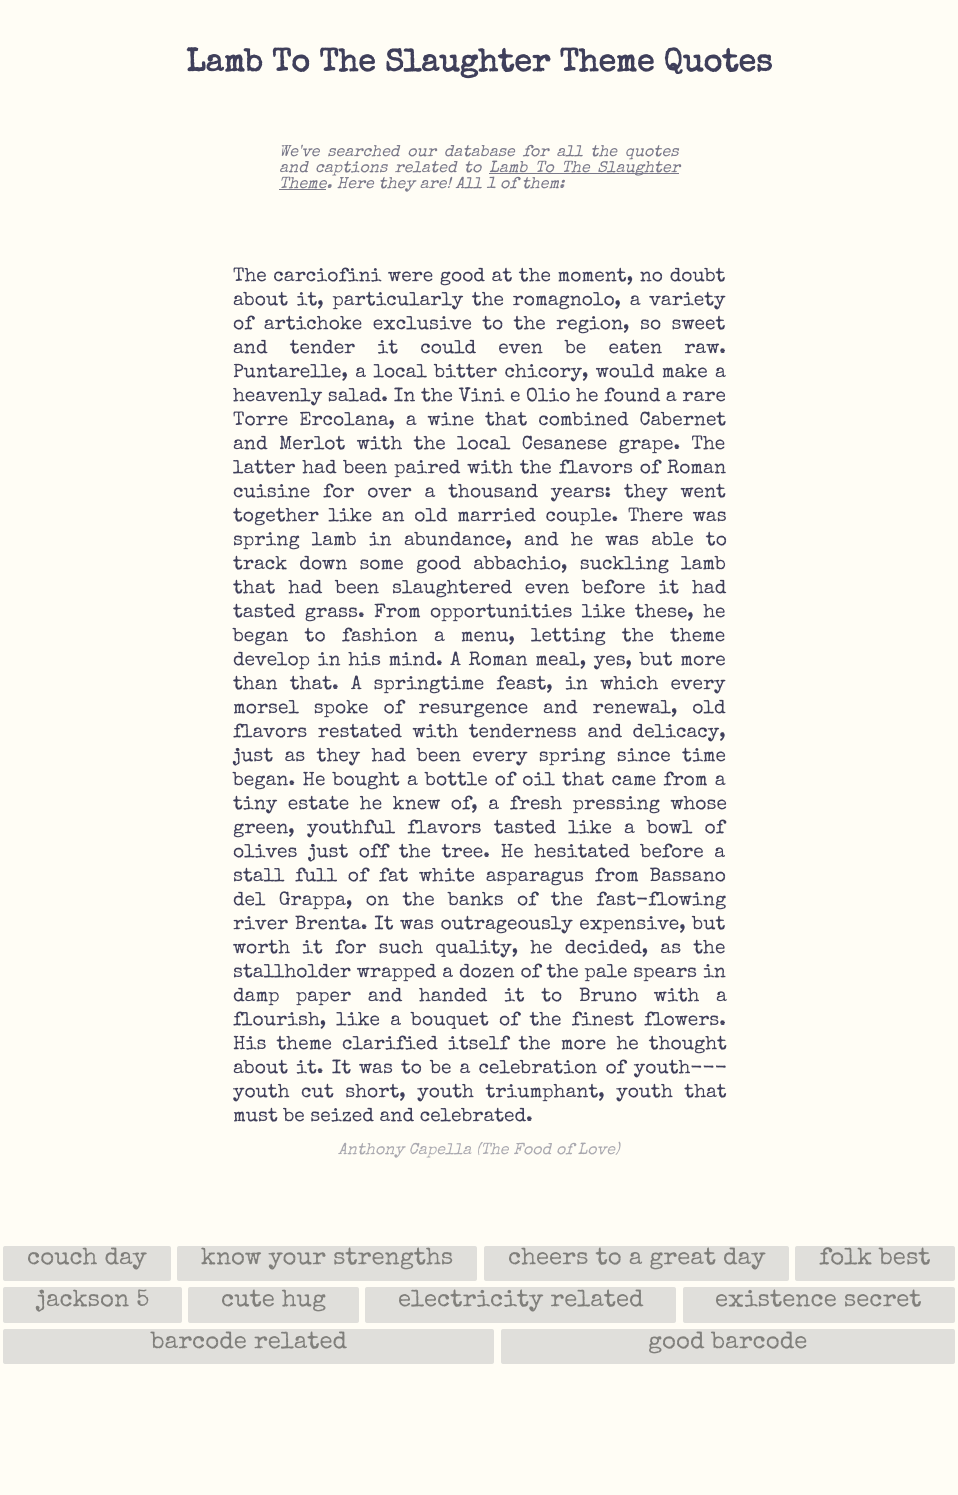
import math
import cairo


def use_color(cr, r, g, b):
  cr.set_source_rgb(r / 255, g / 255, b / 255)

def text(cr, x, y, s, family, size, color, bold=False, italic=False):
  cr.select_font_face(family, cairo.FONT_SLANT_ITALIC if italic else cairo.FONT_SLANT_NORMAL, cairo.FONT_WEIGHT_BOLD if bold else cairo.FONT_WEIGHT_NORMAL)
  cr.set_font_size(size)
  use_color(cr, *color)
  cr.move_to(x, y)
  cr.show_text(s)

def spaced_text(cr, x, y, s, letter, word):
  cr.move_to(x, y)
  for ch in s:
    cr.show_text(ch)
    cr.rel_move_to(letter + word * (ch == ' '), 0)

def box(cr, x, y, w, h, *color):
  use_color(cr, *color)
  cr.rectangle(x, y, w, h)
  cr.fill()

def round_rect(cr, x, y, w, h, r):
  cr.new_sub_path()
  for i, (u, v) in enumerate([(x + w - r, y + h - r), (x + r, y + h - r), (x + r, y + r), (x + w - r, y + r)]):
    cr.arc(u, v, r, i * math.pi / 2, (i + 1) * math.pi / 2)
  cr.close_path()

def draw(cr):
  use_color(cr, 255, 253, 245)
  cr.paint()
  box(cr, 489, 173, 190, 1, 121, 120, 137)
  box(cr, 279, 189, 47, 1, 121, 120, 137)
  use_color(cr, 224, 223, 219)
  round_rect(cr, 3, 1246, 168, 35, 2)
  cr.fill()
  round_rect(cr, 177, 1246, 300, 35, 2)
  cr.fill()
  round_rect(cr, 484, 1246, 305, 35, 2)
  cr.fill()
  round_rect(cr, 795, 1246, 160, 35, 2)
  cr.fill()
  round_rect(cr, 3, 1287, 179, 36, 2)
  cr.fill()
  round_rect(cr, 188, 1287, 171, 36, 2)
  cr.fill()
  round_rect(cr, 365, 1287, 311, 36, 2)
  cr.fill()
  round_rect(cr, 683, 1287, 272, 36, 2)
  cr.fill()
  round_rect(cr, 3, 1329, 491, 35, 2)
  cr.fill()
  round_rect(cr, 501, 1329, 454, 35, 2)
  cr.fill()
  text(cr, 186, 71, "Lamb To The Slaughter Theme Quotes", "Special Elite", 32, (63, 63, 90), bold=True)
  cr.select_font_face("Special Elite", cairo.FONT_SLANT_ITALIC)
  cr.set_font_size(16)
  use_color(cr, 121, 120, 137)
  spaced_text(cr, 279, 156, "We've searched our database for all the quotes", 0, 3)
  spaced_text(cr, 279, 172, "and captions related to", 0, 2.5)
  spaced_text(cr, 489, 172, "Lamb To The Slaughter", 0, 3)
  text(cr, 279, 188, "Theme. Here they are! All 1 of them:", "Special Elite", 16, (121, 120, 137), italic=True)
  cr.select_font_face("Special Elite")
  cr.set_font_size(19.2)
  use_color(cr, 63, 63, 90)
  spaced_text(cr, 233, 281, "The carciofini were good at the moment, no doubt", 0, 1)
  spaced_text(cr, 233, 305, "about it, particularly the romagnolo, a variety", 0, 3)
  spaced_text(cr, 233, 329, "of artichoke exclusive to the region, so sweet", 0, 4.75)
  spaced_text(cr, 233, 353, "and tender it could even be eaten raw.", 0, 16.5)
  spaced_text(cr, 233, 377, "Puntarelle, a local bitter chicory, would make a", 0, 1.75)
  text(cr, 233, 401, "heavenly salad. In the Vini e Olio he found a rare", "Special Elite", 19.2, (63, 63, 90))
  spaced_text(cr, 233, 425, "Torre Ercolana, a wine that combined Cabernet", 0, 5.25)
  spaced_text(cr, 233, 449, "and Merlot with the local Cesanese grape. The", 0, 5.75)
  spaced_text(cr, 233, 473, "latter had been paired with the flavors of Roman", 0, 1.25)
  spaced_text(cr, 233, 497, "cuisine for over a thousand years: they went", 0, 7.25)
  spaced_text(cr, 233, 521, "together like an old married couple. There was", 0, 4)
  spaced_text(cr, 233, 545, "spring lamb in abundance, and he was able to", 0, 6.5)
  spaced_text(cr, 233, 569, "track down some good abbachio, suckling lamb", 0, 6.5)
  spaced_text(cr, 233, 593, "that had been slaughtered even before it had", 0, 7.25)
  spaced_text(cr, 233, 617, "tasted grass. From opportunities like these, he", 0, 3.75)
  spaced_text(cr, 233, 641, "began to fashion a menu, letting the theme", 0, 10.5)
  spaced_text(cr, 233, 665, "develop in his mind. A Roman meal, yes, but more", 0, 2)
  spaced_text(cr, 233, 689, "than that. A springtime feast, in which every", 0, 6.5)
  spaced_text(cr, 233, 713, "morsel spoke of resurgence and renewal, old", 0, 9.25)
  spaced_text(cr, 233, 737, "flavors restated with tenderness and delicacy,", 0, 5)
  spaced_text(cr, 233, 761, "just as they had been every spring since time", 0, 5.75)
  spaced_text(cr, 233, 785, "began. He bought a bottle of oil that came from a", 0, 1.6)
  spaced_text(cr, 233, 809, "tiny estate he knew of, a fresh pressing whose", 0, 5)
  spaced_text(cr, 233, 833, "green, youthful flavors tasted like a bowl of", 0, 6.5)
  spaced_text(cr, 233, 857, "olives just off the tree. He hesitated before a", 0, 5)
  spaced_text(cr, 233, 881, "stall full of fat white asparagus from Bassano", 0, 5)
  spaced_text(cr, 233, 905, "del Grappa, on the banks of the fast-flowing", 0, 7.75)
  spaced_text(cr, 233, 929, "river Brenta. It was outrageously expensive, but", 0, 1)
  spaced_text(cr, 233, 953, "worth it for such quality, he decided, as the", 0, 6.5)
  spaced_text(cr, 233, 977, "stallholder wrapped a dozen of the pale spears in", 0, 0.25)
  spaced_text(cr, 233, 1001, "damp paper and handed it to Bruno with a", 0, 11)
  spaced_text(cr, 233, 1025, "flourish, like a bouquet of the finest flowers.", 0, 4.5)
  spaced_text(cr, 233, 1049, "His theme clarified itself the more he thought", 0, 4.5)
  spaced_text(cr, 233, 1073, "about it. It was to be a celebration of youth---", 0, 2.5)
  spaced_text(cr, 233, 1097, "youth cut short, youth triumphant, youth that", 0, 6)
  text(cr, 233, 1121, "must be seized and celebrated.", "Special Elite", 19.2, (63, 63, 90))
  text(cr, 338, 1154, "Anthony Capella (The Food of Love)", "Special Elite", 16, (169, 168, 175), italic=True)
  text(cr, 27, 1264, "couch day", "Special Elite", 24, (128, 127, 123))
  text(cr, 201, 1264, "know your strengths", "Special Elite", 24, (128, 127, 123))
  text(cr, 508, 1264, "cheers to a great day", "Special Elite", 24, (128, 127, 123))
  text(cr, 819, 1264, "folk best", "Special Elite", 24, (128, 127, 123))
  text(cr, 36, 1306, "jackson 5", "Special Elite", 24, (128, 127, 123))
  text(cr, 221, 1306, "cute hug", "Special Elite", 24, (128, 127, 123))
  text(cr, 398, 1306, "electricity related", "Special Elite", 24, (128, 127, 123))
  text(cr, 715, 1306, "existence secret", "Special Elite", 24, (128, 127, 123))
  text(cr, 151, 1348, "barcode related", "Special Elite", 24, (128, 127, 123))
  text(cr, 648, 1348, "good barcode", "Special Elite", 24, (128, 127, 123))


surface = cairo.ImageSurface(cairo.FORMAT_RGB24, 958, 1495)
cr = cairo.Context(surface)
options = cairo.FontOptions()
options.set_hint_metrics(cairo.HINT_METRICS_OFF)
options.set_hint_style(cairo.HINT_STYLE_NONE)
cr.set_font_options(options)
cr.set_miter_limit(4)
draw(cr)
surface.write_to_png("out.png")
